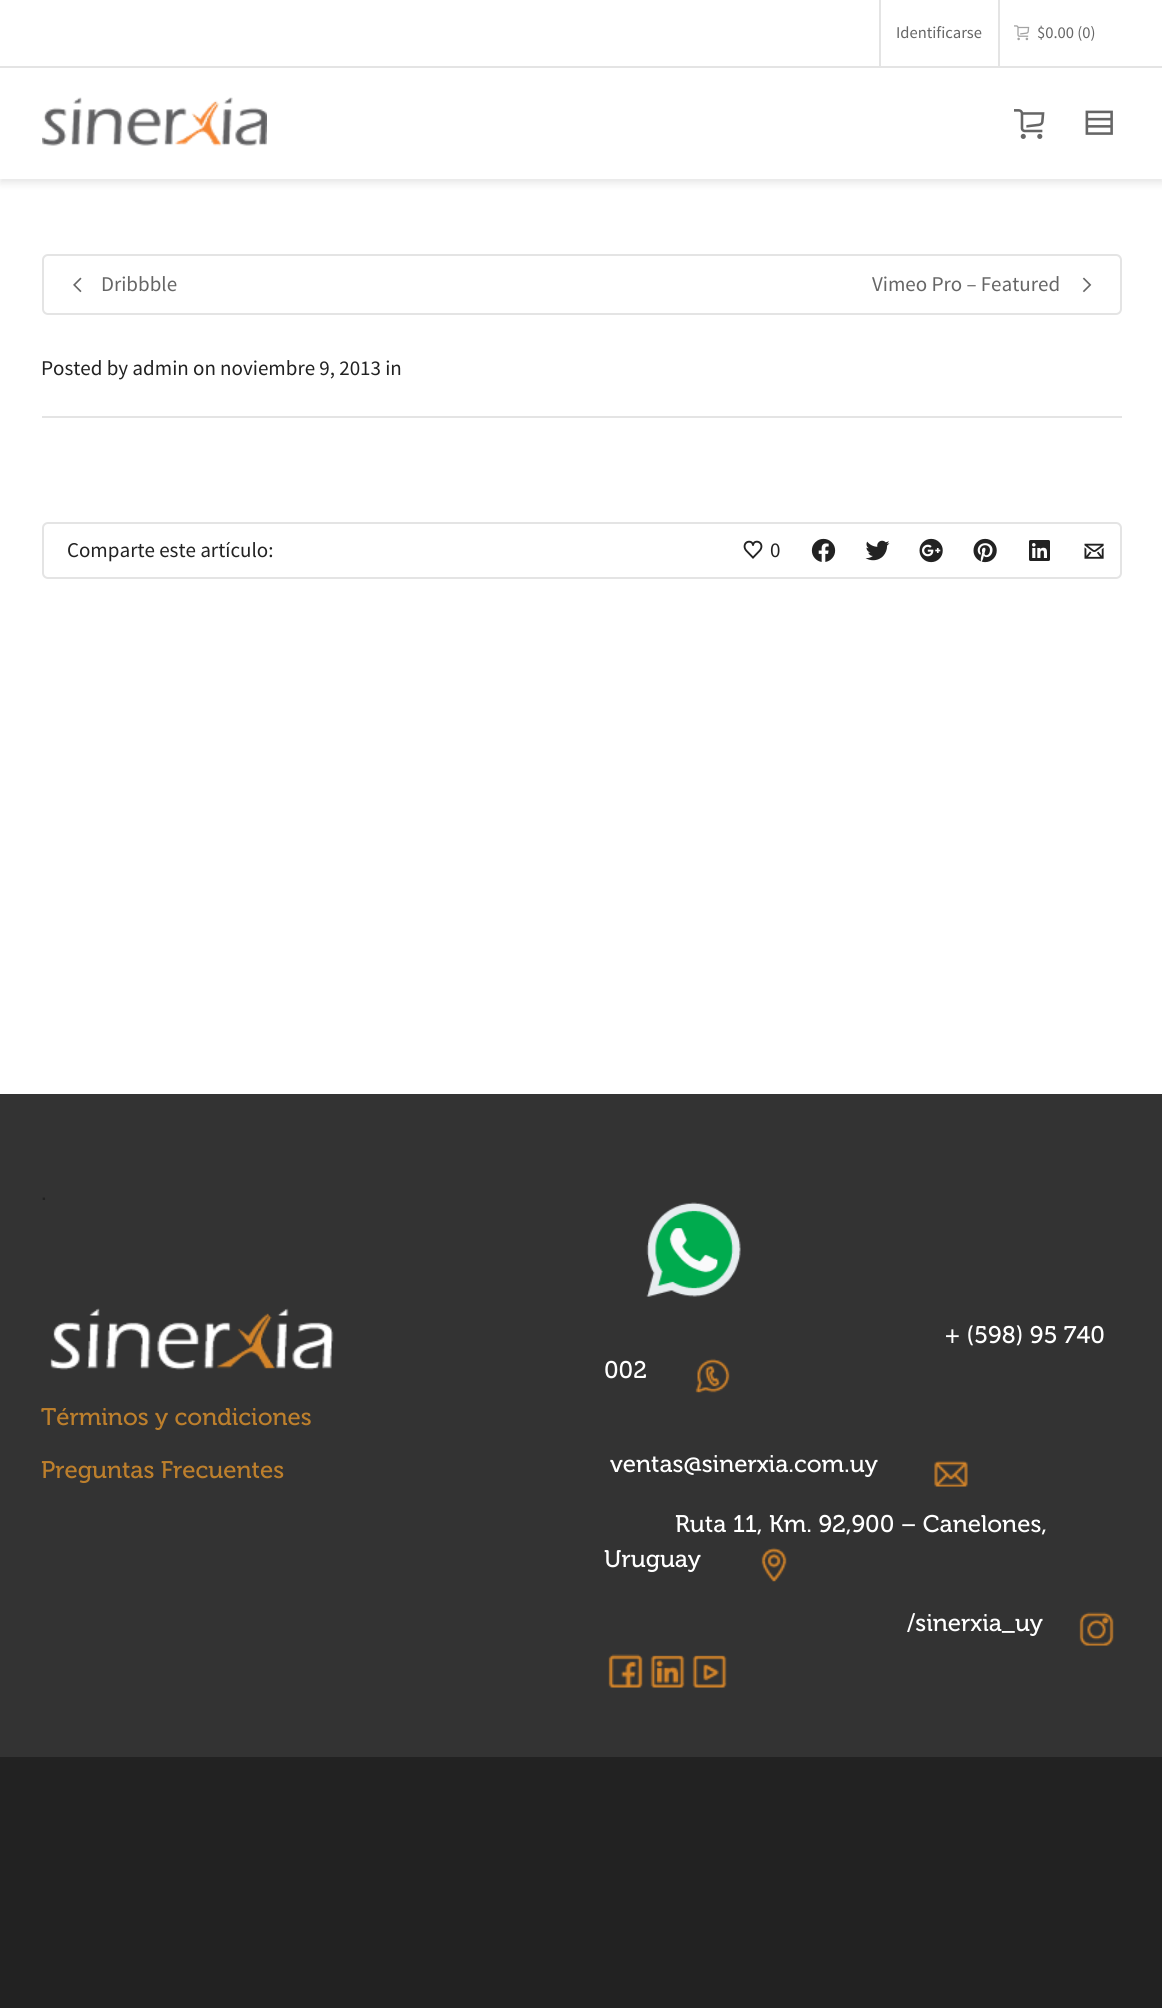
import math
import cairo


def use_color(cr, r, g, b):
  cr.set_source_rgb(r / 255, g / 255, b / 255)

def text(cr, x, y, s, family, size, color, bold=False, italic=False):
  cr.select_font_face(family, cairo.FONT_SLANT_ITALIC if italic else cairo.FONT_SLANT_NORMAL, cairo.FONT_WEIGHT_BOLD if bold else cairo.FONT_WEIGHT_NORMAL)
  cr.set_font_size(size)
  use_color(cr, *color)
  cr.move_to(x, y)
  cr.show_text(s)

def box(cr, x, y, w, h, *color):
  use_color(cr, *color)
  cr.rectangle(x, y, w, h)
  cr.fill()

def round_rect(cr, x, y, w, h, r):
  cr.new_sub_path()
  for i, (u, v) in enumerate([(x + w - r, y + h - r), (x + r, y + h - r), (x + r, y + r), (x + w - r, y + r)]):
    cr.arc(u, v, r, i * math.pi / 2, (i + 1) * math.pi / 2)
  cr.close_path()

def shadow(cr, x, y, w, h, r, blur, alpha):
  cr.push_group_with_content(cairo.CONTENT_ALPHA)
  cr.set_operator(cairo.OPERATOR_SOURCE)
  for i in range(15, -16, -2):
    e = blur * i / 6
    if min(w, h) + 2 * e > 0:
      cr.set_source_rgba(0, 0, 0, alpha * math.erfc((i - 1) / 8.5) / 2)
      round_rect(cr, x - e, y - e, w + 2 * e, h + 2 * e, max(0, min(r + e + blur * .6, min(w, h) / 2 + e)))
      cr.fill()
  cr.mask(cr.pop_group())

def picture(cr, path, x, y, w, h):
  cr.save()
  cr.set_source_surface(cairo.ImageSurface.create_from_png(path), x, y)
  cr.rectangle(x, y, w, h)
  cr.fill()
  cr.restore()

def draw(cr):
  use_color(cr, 34, 34, 34)
  cr.paint()
  box(cr, 0, 179, 1162, 915, 255, 255, 255)
  use_color(cr, 0, 0, 0)
  shadow(cr, 0, 5, 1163, 178, 0, 4, 0.1)
  box(cr, 0, 0, 1162, 179, 255, 255, 255)
  box(cr, 0, 66, 1162, 2, 228, 228, 228)
  box(cr, 879, 0, 2, 66, 228, 228, 228)
  box(cr, 998, 0, 2, 66, 228, 228, 228)
  picture(cr, "img_01.png", 1014, 25, 16, 16)
  picture(cr, "img_02.png", 42, 97, 225, 49)
  picture(cr, "img_03.png", 1014, 109, 31, 30)
  picture(cr, "img_04.png", 1085, 110, 28, 25)
  round_rect(cr, 43, 255, 1078, 59, 5)
  cr.stroke()
  picture(cr, "img_05.png", 73, 277, 9, 16)
  picture(cr, "img_06.png", 1082, 277, 10, 16)
  box(cr, 42, 416, 1080, 2, 228, 228, 228)
  round_rect(cr, 43, 523, 1078, 55, 5)
  cr.stroke()
  picture(cr, "img_07.png", 743, 540, 20, 19)
  picture(cr, "img_08.png", 811, 538, 25, 24)
  picture(cr, "img_09.png", 865, 540, 25, 21)
  picture(cr, "img_10.png", 919, 538, 24, 25)
  picture(cr, "img_11.png", 973, 538, 24, 25)
  picture(cr, "img_12.png", 1029, 540, 21, 21)
  picture(cr, "img_13.png", 1084, 543, 20, 16)
  box(cr, 0, 1094, 1162, 663, 51, 51, 51)
  picture(cr, "img_14.png", 50, 1308, 284, 62)
  picture(cr, "img_15.png", 646, 1202, 95, 95)
  picture(cr, "img_16.png", 695, 1358, 35, 35)
  picture(cr, "img_17.png", 934, 1460, 34, 27)
  picture(cr, "img_18.png", 761, 1547, 26, 35)
  picture(cr, "img_19.png", 1079, 1612, 35, 34)
  picture(cr, "img_20.png", 608, 1654, 35, 34)
  picture(cr, "img_21.png", 650, 1655, 35, 33)
  picture(cr, "img_22.png", 692, 1655, 35, 33)
  text(cr, 896, 38, "Identificarse", "Source Sans Pro", 16.5, (102, 102, 102))
  text(cr, 1037, 38, "$0.00 (0)", "Source Sans Pro", 16.5, (102, 102, 102))
  text(cr, 101, 291, "Dribbble", "Source Sans Pro", 21, (102, 102, 102))
  text(cr, 872, 291, "Vimeo Pro – Featured", "Source Sans Pro", 21, (102, 102, 102))
  text(cr, 41, 375, "Posted by admin on noviembre 9, 2013 in", "Source Sans Pro", 21, (34, 34, 34))
  text(cr, 67, 557, "Comparte este artículo:", "Source Sans Pro", 21, (34, 34, 34))
  text(cr, 770, 557, "0", "Source Sans Pro", 21, (34, 34, 34))
  text(cr, 41, 1200, ".", "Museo", 24, (34, 34, 34))
  text(cr, 41, 1425, "Términos y condiciones", "Museo", 24, (189, 127, 44))
  text(cr, 41, 1478, "Preguntas Frecuentes", "Museo", 24, (189, 127, 44))
  text(cr, 945, 1343, "+ (598) 95 740", "Museo", 24, (255, 255, 255))
  text(cr, 604, 1378, "002", "Museo", 24, (255, 255, 255))
  text(cr, 610, 1472, "ventas@sinerxia.com.uy", "Museo", 24, (255, 255, 255))
  text(cr, 675, 1532, "Ruta 11, Km. 92,900 – Canelones,", "Museo", 24, (255, 255, 255))
  text(cr, 604, 1567, "Uruguay", "Museo", 24, (255, 255, 255))
  text(cr, 907, 1631, "/sinerxia_uy", "Museo", 24, (255, 255, 255))


surface = cairo.ImageSurface(cairo.FORMAT_RGB24, 1162, 2008)
cr = cairo.Context(surface)
options = cairo.FontOptions()
options.set_hint_metrics(cairo.HINT_METRICS_OFF)
options.set_hint_style(cairo.HINT_STYLE_NONE)
cr.set_font_options(options)
cr.set_miter_limit(4)
draw(cr)
surface.write_to_png("out.png")
